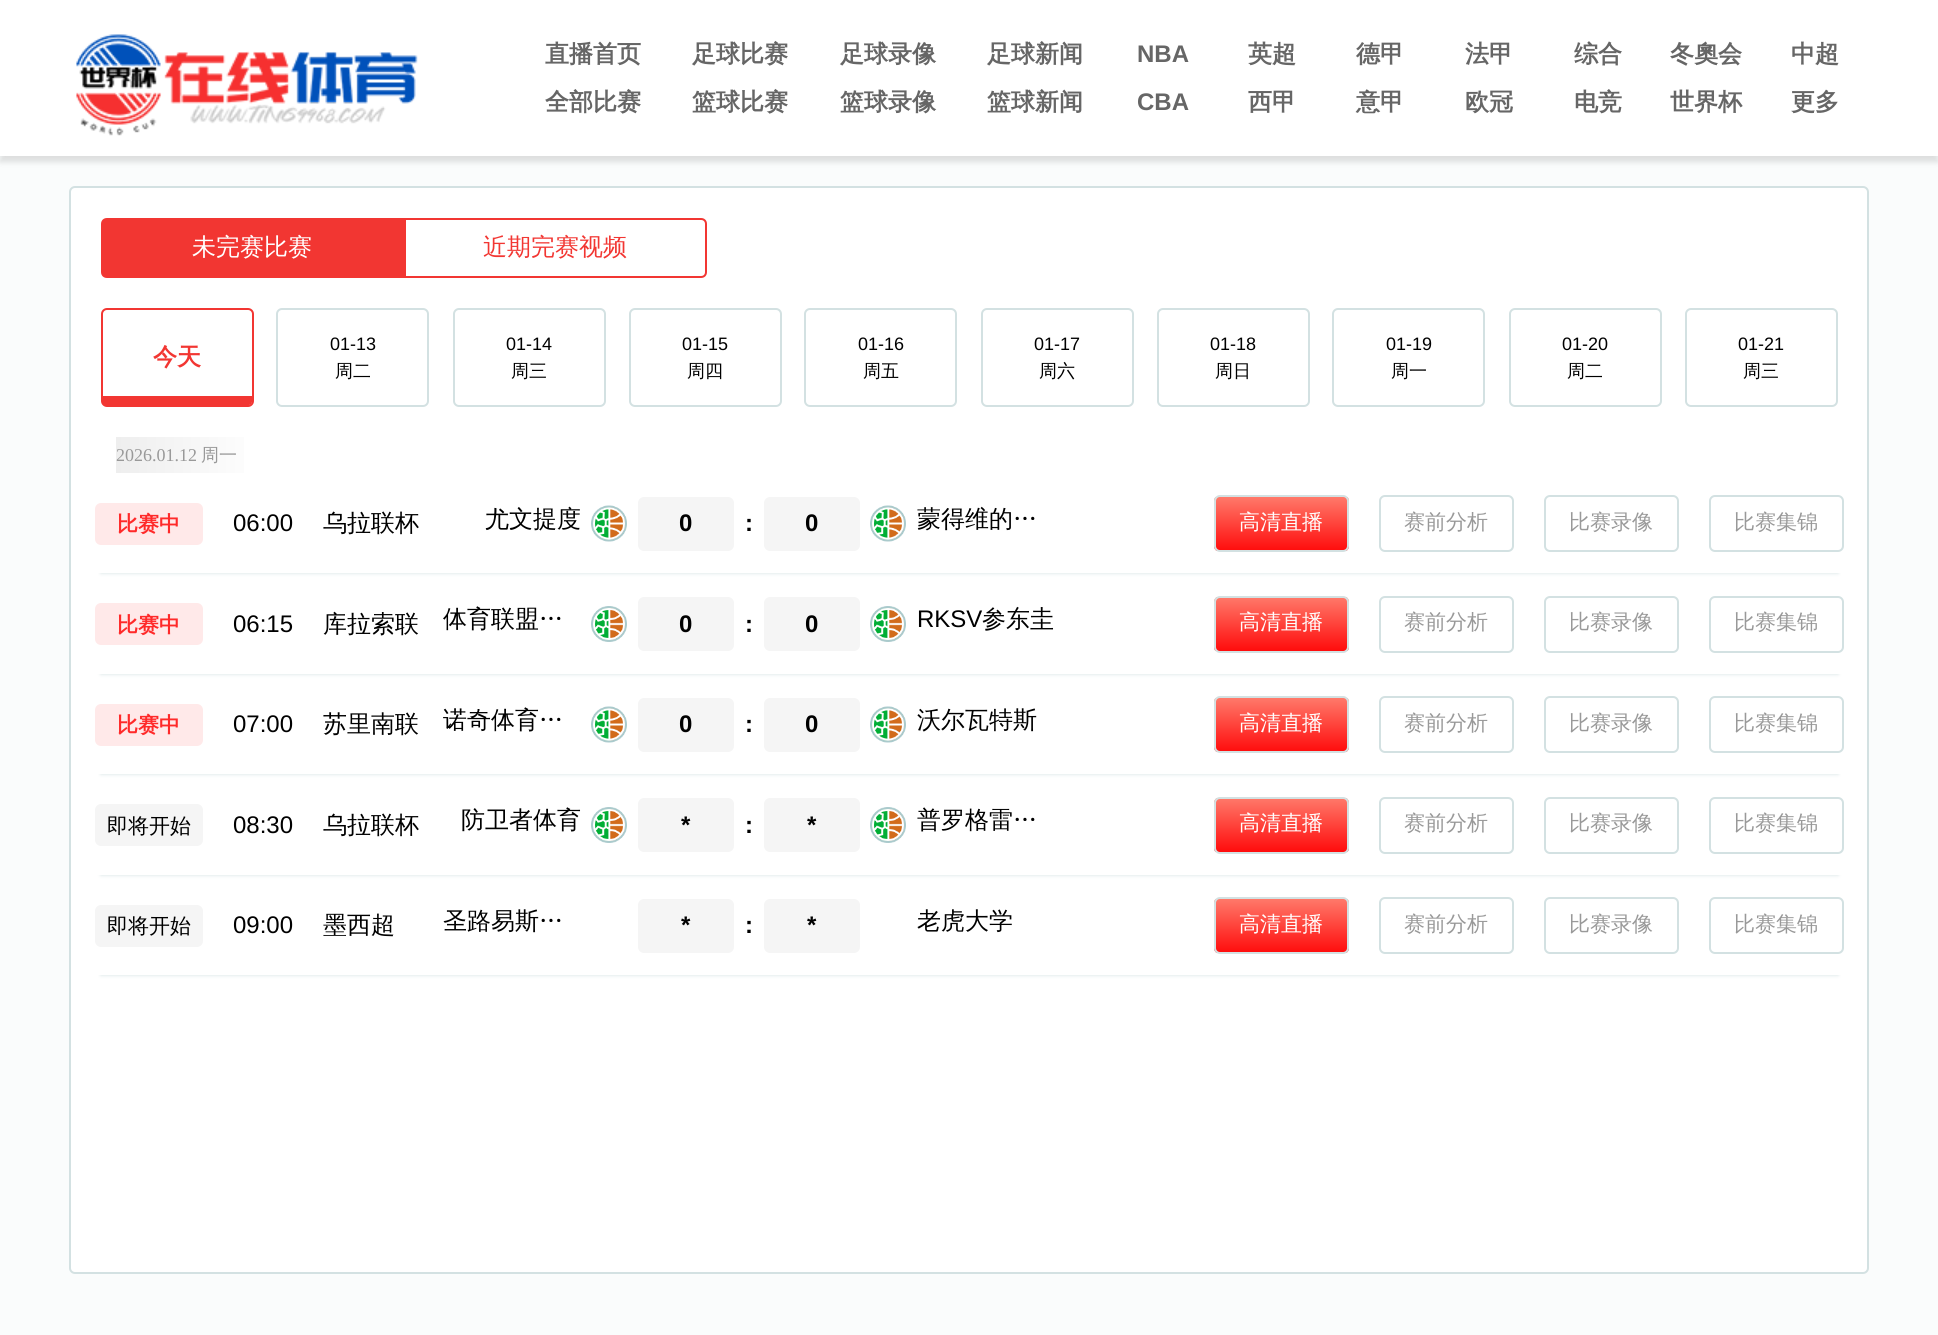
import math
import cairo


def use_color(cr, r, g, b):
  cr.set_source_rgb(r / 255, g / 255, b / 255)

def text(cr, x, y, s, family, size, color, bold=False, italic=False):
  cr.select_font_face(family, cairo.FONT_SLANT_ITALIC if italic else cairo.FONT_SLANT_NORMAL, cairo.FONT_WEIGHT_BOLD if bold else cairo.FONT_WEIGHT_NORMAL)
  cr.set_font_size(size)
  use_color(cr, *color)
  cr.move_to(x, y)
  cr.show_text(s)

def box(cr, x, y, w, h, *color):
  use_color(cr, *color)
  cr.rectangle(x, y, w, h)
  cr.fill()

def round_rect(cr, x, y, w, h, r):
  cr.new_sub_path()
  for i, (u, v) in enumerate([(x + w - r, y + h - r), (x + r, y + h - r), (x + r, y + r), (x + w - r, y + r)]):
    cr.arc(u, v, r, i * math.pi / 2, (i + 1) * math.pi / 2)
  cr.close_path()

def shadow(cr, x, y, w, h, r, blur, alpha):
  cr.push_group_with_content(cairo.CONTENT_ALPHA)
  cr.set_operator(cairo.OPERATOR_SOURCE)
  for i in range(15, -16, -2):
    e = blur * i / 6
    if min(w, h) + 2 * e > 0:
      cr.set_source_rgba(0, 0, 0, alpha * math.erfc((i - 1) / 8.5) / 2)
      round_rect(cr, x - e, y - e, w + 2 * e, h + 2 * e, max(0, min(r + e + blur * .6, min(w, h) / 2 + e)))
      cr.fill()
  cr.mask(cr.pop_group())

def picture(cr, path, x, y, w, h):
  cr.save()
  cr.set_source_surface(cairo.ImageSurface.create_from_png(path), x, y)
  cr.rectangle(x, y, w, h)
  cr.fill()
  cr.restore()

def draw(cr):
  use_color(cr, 250, 252, 252)
  cr.paint()
  use_color(cr, 0, 0, 0)
  shadow(cr, 0, 6, 1938, 156, 0, 3, 0.12)
  box(cr, 0, 0, 1938, 156, 255, 255, 255)
  picture(cr, "img_01.png", 76, 34, 342, 102)
  round_rect(cr, 70, 187, 1798, 1086, 5)
  cr.fill_preserve()
  use_color(cr, 211, 225, 226)
  cr.stroke()
  use_color(cr, 242, 54, 50)
  cr.new_path()
  cr.move_to(107, 219)
  cr.line_to(403, 219)
  cr.line_to(403, 277)
  cr.line_to(107, 277)
  cr.curve_to(104, 277, 102, 275, 102, 272)
  cr.line_to(102, 224)
  cr.curve_to(102, 221, 104, 219, 107, 219)
  cr.close_path()
  cr.fill_preserve()
  cr.stroke()
  cr.new_path()
  cr.move_to(405, 219)
  cr.line_to(701, 219)
  cr.curve_to(704, 219, 706, 221, 706, 224)
  cr.line_to(706, 272)
  cr.curve_to(706, 275, 704, 277, 701, 277)
  cr.line_to(405, 277)
  cr.close_path()
  cr.stroke()
  round_rect(cr, 102, 309, 151, 97, 5)
  cr.stroke()
  cr.new_path()
  cr.move_to(102, 396)
  cr.line_to(252, 396)
  cr.line_to(252, 402)
  cr.curve_to(252, 403.5, 250.5, 405, 249, 405)
  cr.line_to(105, 405)
  cr.curve_to(103.5, 405, 102, 403.5, 102, 402)
  cr.close_path()
  cr.fill()
  round_rect(cr, 277, 309, 151, 97, 5)
  use_color(cr, 211, 225, 226)
  cr.stroke()
  round_rect(cr, 454, 309, 151, 97, 5)
  cr.stroke()
  round_rect(cr, 630, 309, 151, 97, 5)
  cr.stroke()
  round_rect(cr, 805, 309, 151, 97, 5)
  cr.stroke()
  round_rect(cr, 982, 309, 151, 97, 5)
  cr.stroke()
  round_rect(cr, 1158, 309, 151, 97, 5)
  cr.stroke()
  round_rect(cr, 1333, 309, 151, 97, 5)
  cr.stroke()
  round_rect(cr, 1510, 309, 151, 97, 5)
  cr.stroke()
  round_rect(cr, 1686, 309, 151, 97, 5)
  cr.stroke()
  gradient = cairo.LinearGradient(266, 455, 116, 455)
  gradient.add_color_stop_rgba(0, 1, 1, 1, 1)
  gradient.add_color_stop_rgba(1, 0.933, 0.933, 0.933, 1)
  cr.set_source(gradient)
  cr.rectangle(116, 437, 128, 36)
  cr.fill()
  cr.save()
  cr.rectangle(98, 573, 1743, 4)
  cr.clip()
  use_color(cr, 211, 225, 226)
  shadow(cr, 101, 533, 1737, 40, 0, 2, 1)
  cr.restore()
  use_color(cr, 255, 233, 233)
  round_rect(cr, 95, 503, 108, 42, 6)
  cr.fill()
  picture(cr, "img_02.png", 591, 505, 36, 37)
  use_color(cr, 245, 245, 245)
  round_rect(cr, 638, 497, 96, 54, 6)
  cr.fill()
  round_rect(cr, 764, 497, 96, 54, 6)
  cr.fill()
  picture(cr, "img_03.png", 870, 505, 36, 37)
  cr.save()
  round_rect(cr, 1214, 495, 135, 57, 6)
  cr.clip()
  gradient = cairo.LinearGradient(1281, 497, 1281, 551)
  gradient.add_color_stop_rgba(0, 1, 0.475, 0.416, 1)
  gradient.add_color_stop_rgba(1, 1, 0.047, 0.047, 1)
  cr.set_source(gradient)
  cr.rectangle(1214, 497, 135, 54)
  cr.fill()
  cr.restore()
  round_rect(cr, 1215, 496, 133, 55, 5)
  use_color(cr, 211, 225, 226)
  cr.stroke()
  round_rect(cr, 1380, 496, 133, 55, 5)
  cr.stroke()
  round_rect(cr, 1545, 496, 133, 55, 5)
  cr.stroke()
  round_rect(cr, 1710, 496, 133, 55, 5)
  cr.stroke()
  cr.save()
  cr.set_fill_rule(cairo.FILL_RULE_EVEN_ODD)
  cr.new_path()
  cr.move_to(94, 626)
  cr.line_to(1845, 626)
  cr.line_to(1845, 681)
  cr.line_to(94, 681)
  cr.close_path()
  cr.move_to(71, 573)
  cr.line_to(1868, 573)
  cr.line_to(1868, 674)
  cr.line_to(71, 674)
  cr.close_path()
  cr.clip()
  use_color(cr, 211, 225, 226)
  shadow(cr, 101, 633, 1737, 41, 0, 2, 1)
  cr.restore()
  use_color(cr, 255, 233, 233)
  round_rect(cr, 95, 603, 108, 42, 6)
  cr.fill()
  picture(cr, "img_04.png", 591, 606, 36, 36)
  use_color(cr, 245, 245, 245)
  round_rect(cr, 638, 597, 96, 54, 6)
  cr.fill()
  round_rect(cr, 764, 597, 96, 54, 6)
  cr.fill()
  picture(cr, "img_05.png", 870, 606, 36, 36)
  cr.save()
  round_rect(cr, 1214, 596, 135, 57, 6)
  cr.clip()
  gradient = cairo.LinearGradient(1281, 597, 1281, 651)
  gradient.add_color_stop_rgba(0, 1, 0.475, 0.416, 1)
  gradient.add_color_stop_rgba(1, 1, 0.047, 0.047, 1)
  cr.set_source(gradient)
  cr.rectangle(1214, 597, 135, 54)
  cr.fill()
  cr.restore()
  round_rect(cr, 1215, 597, 133, 55, 5)
  use_color(cr, 211, 225, 226)
  cr.stroke()
  round_rect(cr, 1380, 597, 133, 55, 5)
  cr.stroke()
  round_rect(cr, 1545, 597, 133, 55, 5)
  cr.stroke()
  round_rect(cr, 1710, 597, 133, 55, 5)
  cr.stroke()
  cr.save()
  cr.rectangle(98, 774, 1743, 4)
  cr.clip()
  use_color(cr, 211, 225, 226)
  shadow(cr, 101, 734, 1737, 40, 0, 2, 1)
  cr.restore()
  use_color(cr, 255, 233, 233)
  round_rect(cr, 95, 704, 108, 42, 6)
  cr.fill()
  picture(cr, "img_02.png", 591, 706, 36, 37)
  use_color(cr, 245, 245, 245)
  round_rect(cr, 638, 698, 96, 54, 6)
  cr.fill()
  round_rect(cr, 764, 698, 96, 54, 6)
  cr.fill()
  picture(cr, "img_03.png", 870, 706, 36, 37)
  cr.save()
  round_rect(cr, 1214, 696, 135, 57, 6)
  cr.clip()
  gradient = cairo.LinearGradient(1281, 698, 1281, 752)
  gradient.add_color_stop_rgba(0, 1, 0.475, 0.416, 1)
  gradient.add_color_stop_rgba(1, 1, 0.047, 0.047, 1)
  cr.set_source(gradient)
  cr.rectangle(1214, 698, 135, 54)
  cr.fill()
  cr.restore()
  round_rect(cr, 1215, 697, 133, 55, 5)
  use_color(cr, 211, 225, 226)
  cr.stroke()
  round_rect(cr, 1380, 697, 133, 55, 5)
  cr.stroke()
  round_rect(cr, 1545, 697, 133, 55, 5)
  cr.stroke()
  round_rect(cr, 1710, 697, 133, 55, 5)
  cr.stroke()
  cr.save()
  cr.set_fill_rule(cairo.FILL_RULE_EVEN_ODD)
  cr.new_path()
  cr.move_to(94, 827)
  cr.line_to(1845, 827)
  cr.line_to(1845, 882)
  cr.line_to(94, 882)
  cr.close_path()
  cr.move_to(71, 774)
  cr.line_to(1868, 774)
  cr.line_to(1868, 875)
  cr.line_to(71, 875)
  cr.close_path()
  cr.clip()
  use_color(cr, 211, 225, 226)
  shadow(cr, 101, 834, 1737, 41, 0, 2, 1)
  cr.restore()
  use_color(cr, 245, 245, 245)
  round_rect(cr, 95, 804, 108, 42, 6)
  cr.fill()
  picture(cr, "img_04.png", 591, 807, 36, 36)
  round_rect(cr, 638, 798, 96, 54, 6)
  cr.fill()
  round_rect(cr, 764, 798, 96, 54, 6)
  cr.fill()
  picture(cr, "img_05.png", 870, 807, 36, 36)
  cr.save()
  round_rect(cr, 1214, 797, 135, 57, 6)
  cr.clip()
  gradient = cairo.LinearGradient(1281, 798, 1281, 852)
  gradient.add_color_stop_rgba(0, 1, 0.475, 0.416, 1)
  gradient.add_color_stop_rgba(1, 1, 0.047, 0.047, 1)
  cr.set_source(gradient)
  cr.rectangle(1214, 798, 135, 54)
  cr.fill()
  cr.restore()
  round_rect(cr, 1215, 798, 133, 55, 5)
  use_color(cr, 211, 225, 226)
  cr.stroke()
  round_rect(cr, 1380, 798, 133, 55, 5)
  cr.stroke()
  round_rect(cr, 1545, 798, 133, 55, 5)
  cr.stroke()
  round_rect(cr, 1710, 798, 133, 55, 5)
  cr.stroke()
  cr.save()
  cr.rectangle(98, 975, 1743, 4)
  cr.clip()
  use_color(cr, 211, 225, 226)
  shadow(cr, 101, 935, 1737, 40, 0, 2, 1)
  cr.restore()
  use_color(cr, 245, 245, 245)
  round_rect(cr, 95, 905, 108, 42, 6)
  cr.fill()
  round_rect(cr, 638, 899, 96, 54, 6)
  cr.fill()
  round_rect(cr, 764, 899, 96, 54, 6)
  cr.fill()
  cr.save()
  round_rect(cr, 1214, 897, 135, 57, 6)
  cr.clip()
  gradient = cairo.LinearGradient(1281, 899, 1281, 953)
  gradient.add_color_stop_rgba(0, 1, 0.475, 0.416, 1)
  gradient.add_color_stop_rgba(1, 1, 0.047, 0.047, 1)
  cr.set_source(gradient)
  cr.rectangle(1214, 899, 135, 54)
  cr.fill()
  cr.restore()
  round_rect(cr, 1215, 898, 133, 55, 5)
  use_color(cr, 211, 225, 226)
  cr.stroke()
  round_rect(cr, 1380, 898, 133, 55, 5)
  cr.stroke()
  round_rect(cr, 1545, 898, 133, 55, 5)
  cr.stroke()
  round_rect(cr, 1710, 898, 133, 55, 5)
  cr.stroke()
  text(cr, 545, 62, "直播首页", "WenQuanYi Zen Hei", 24, (102, 102, 102), bold=True)
  text(cr, 692, 62, "足球比赛", "WenQuanYi Zen Hei", 24, (102, 102, 102), bold=True)
  text(cr, 840, 62, "足球录像", "WenQuanYi Zen Hei", 24, (102, 102, 102), bold=True)
  text(cr, 987, 62, "足球新闻", "WenQuanYi Zen Hei", 24, (102, 102, 102), bold=True)
  text(cr, 1137, 62, "NBA", "Liberation Sans", 24, (102, 102, 102), bold=True)
  text(cr, 1248, 62, "英超", "WenQuanYi Zen Hei", 24, (102, 102, 102), bold=True)
  text(cr, 1356, 62, "德甲", "WenQuanYi Zen Hei", 24, (102, 102, 102), bold=True)
  text(cr, 1465, 62, "法甲", "WenQuanYi Zen Hei", 24, (102, 102, 102), bold=True)
  text(cr, 1574, 62, "综合", "WenQuanYi Zen Hei", 24, (102, 102, 102), bold=True)
  text(cr, 1670, 62, "冬奧会", "WenQuanYi Zen Hei", 24, (102, 102, 102), bold=True)
  text(cr, 1791, 62, "中超", "WenQuanYi Zen Hei", 24, (102, 102, 102), bold=True)
  text(cr, 545, 110, "全部比赛", "WenQuanYi Zen Hei", 24, (102, 102, 102), bold=True)
  text(cr, 692, 110, "篮球比赛", "WenQuanYi Zen Hei", 24, (102, 102, 102), bold=True)
  text(cr, 840, 110, "篮球录像", "WenQuanYi Zen Hei", 24, (102, 102, 102), bold=True)
  text(cr, 987, 110, "篮球新闻", "WenQuanYi Zen Hei", 24, (102, 102, 102), bold=True)
  text(cr, 1137, 110, "CBA", "Liberation Sans", 24, (102, 102, 102), bold=True)
  text(cr, 1248, 110, "西甲", "WenQuanYi Zen Hei", 24, (102, 102, 102), bold=True)
  text(cr, 1356, 110, "意甲", "WenQuanYi Zen Hei", 24, (102, 102, 102), bold=True)
  text(cr, 1465, 110, "欧冠", "WenQuanYi Zen Hei", 24, (102, 102, 102), bold=True)
  text(cr, 1574, 110, "电竞", "WenQuanYi Zen Hei", 24, (102, 102, 102), bold=True)
  text(cr, 1670, 110, "世界杯", "WenQuanYi Zen Hei", 24, (102, 102, 102), bold=True)
  text(cr, 1791, 110, "更多", "WenQuanYi Zen Hei", 24, (102, 102, 102), bold=True)
  text(cr, 192, 255, "未完赛比赛", "WenQuanYi Zen Hei Medium", 24, (255, 255, 255))
  text(cr, 483, 255, "近期完赛视频", "WenQuanYi Zen Hei Medium", 24, (242, 54, 50))
  text(cr, 153, 365, "今天", "WenQuanYi Zen Hei", 24, (242, 54, 50), bold=True)
  text(cr, 330, 350, "01-13", "Liberation Sans", 18, (0, 0, 0))
  text(cr, 335, 377, "周二", "WenQuanYi Zen Hei Medium", 18, (0, 0, 0))
  text(cr, 506, 350, "01-14", "Liberation Sans", 18, (0, 0, 0))
  text(cr, 511, 377, "周三", "WenQuanYi Zen Hei Medium", 18, (0, 0, 0))
  text(cr, 682, 350, "01-15", "Liberation Sans", 18, (0, 0, 0))
  text(cr, 687, 377, "周四", "WenQuanYi Zen Hei Medium", 18, (0, 0, 0))
  text(cr, 858, 350, "01-16", "Liberation Sans", 18, (0, 0, 0))
  text(cr, 863, 377, "周五", "WenQuanYi Zen Hei Medium", 18, (0, 0, 0))
  text(cr, 1034, 350, "01-17", "Liberation Sans", 18, (0, 0, 0))
  text(cr, 1039, 377, "周六", "WenQuanYi Zen Hei Medium", 18, (0, 0, 0))
  text(cr, 1210, 350, "01-18", "Liberation Sans", 18, (0, 0, 0))
  text(cr, 1215, 377, "周日", "WenQuanYi Zen Hei Medium", 18, (0, 0, 0))
  text(cr, 1386, 350, "01-19", "Liberation Sans", 18, (0, 0, 0))
  text(cr, 1391, 377, "周一", "WenQuanYi Zen Hei Medium", 18, (0, 0, 0))
  text(cr, 1562, 350, "01-20", "Liberation Sans", 18, (0, 0, 0))
  text(cr, 1567, 377, "周二", "WenQuanYi Zen Hei Medium", 18, (0, 0, 0))
  text(cr, 1738, 350, "01-21", "Liberation Sans", 18, (0, 0, 0))
  text(cr, 1743, 377, "周三", "WenQuanYi Zen Hei Medium", 18, (0, 0, 0))
  text(cr, 116, 461, "2026.01.12", "Liberation Serif", 18, (153, 153, 153))
  text(cr, 201, 461, "周一", "WenQuanYi Zen Hei Medium", 18, (153, 153, 153))
  text(cr, 117, 531, "比赛中", "WenQuanYi Zen Hei", 21, (255, 42, 42), bold=True)
  text(cr, 233, 531, "06:00", "Liberation Sans", 24, (0, 0, 0))
  text(cr, 323, 531, "乌拉联杯", "WenQuanYi Zen Hei Medium", 24, (0, 0, 0))
  text(cr, 485, 527, "尤文提度", "WenQuanYi Zen Hei Medium", 24, (0, 0, 0))
  text(cr, 679, 531, "0", "Liberation Sans", 24, (0, 0, 0), bold=True)
  text(cr, 745, 531, ":", "Liberation Sans", 24, (0, 0, 0), bold=True)
  text(cr, 805, 531, "0", "Liberation Sans", 24, (0, 0, 0), bold=True)
  text(cr, 917, 527, "蒙得维的…", "WenQuanYi Zen Hei Medium", 24, (0, 0, 0))
  text(cr, 1239, 529, "高清直播", "WenQuanYi Zen Hei Medium", 21, (255, 255, 255))
  text(cr, 1404, 529, "赛前分析", "WenQuanYi Zen Hei Medium", 21, (153, 153, 153))
  text(cr, 1569, 529, "比赛录像", "WenQuanYi Zen Hei Medium", 21, (153, 153, 153))
  text(cr, 1734, 529, "比赛集锦", "WenQuanYi Zen Hei Medium", 21, (153, 153, 153))
  text(cr, 117, 632, "比赛中", "WenQuanYi Zen Hei", 21, (255, 42, 42), bold=True)
  text(cr, 233, 632, "06:15", "Liberation Sans", 24, (0, 0, 0))
  text(cr, 323, 632, "库拉索联", "WenQuanYi Zen Hei Medium", 24, (0, 0, 0))
  text(cr, 443, 627, "体育联盟…", "WenQuanYi Zen Hei Medium", 24, (0, 0, 0))
  text(cr, 679, 632, "0", "Liberation Sans", 24, (0, 0, 0), bold=True)
  text(cr, 745, 632, ":", "Liberation Sans", 24, (0, 0, 0), bold=True)
  text(cr, 805, 632, "0", "Liberation Sans", 24, (0, 0, 0), bold=True)
  text(cr, 917, 627, "RKSV", "Liberation Sans", 24, (0, 0, 0))
  text(cr, 982, 627, "参东圭", "WenQuanYi Zen Hei Medium", 24, (0, 0, 0))
  text(cr, 1239, 629, "高清直播", "WenQuanYi Zen Hei Medium", 21, (255, 255, 255))
  text(cr, 1404, 629, "赛前分析", "WenQuanYi Zen Hei Medium", 21, (153, 153, 153))
  text(cr, 1569, 629, "比赛录像", "WenQuanYi Zen Hei Medium", 21, (153, 153, 153))
  text(cr, 1734, 629, "比赛集锦", "WenQuanYi Zen Hei Medium", 21, (153, 153, 153))
  text(cr, 117, 732, "比赛中", "WenQuanYi Zen Hei", 21, (255, 42, 42), bold=True)
  text(cr, 233, 732, "07:00", "Liberation Sans", 24, (0, 0, 0))
  text(cr, 323, 732, "苏里南联", "WenQuanYi Zen Hei Medium", 24, (0, 0, 0))
  text(cr, 443, 728, "诺奇体育…", "WenQuanYi Zen Hei Medium", 24, (0, 0, 0))
  text(cr, 679, 732, "0", "Liberation Sans", 24, (0, 0, 0), bold=True)
  text(cr, 745, 732, ":", "Liberation Sans", 24, (0, 0, 0), bold=True)
  text(cr, 805, 732, "0", "Liberation Sans", 24, (0, 0, 0), bold=True)
  text(cr, 917, 728, "沃尔瓦特斯", "WenQuanYi Zen Hei Medium", 24, (0, 0, 0))
  text(cr, 1239, 730, "高清直播", "WenQuanYi Zen Hei Medium", 21, (255, 255, 255))
  text(cr, 1404, 730, "赛前分析", "WenQuanYi Zen Hei Medium", 21, (153, 153, 153))
  text(cr, 1569, 730, "比赛录像", "WenQuanYi Zen Hei Medium", 21, (153, 153, 153))
  text(cr, 1734, 730, "比赛集锦", "WenQuanYi Zen Hei Medium", 21, (153, 153, 153))
  text(cr, 107, 833, "即将开始", "WenQuanYi Zen Hei Medium", 21, (0, 0, 0))
  text(cr, 233, 833, "08:30", "Liberation Sans", 24, (0, 0, 0))
  text(cr, 323, 833, "乌拉联杯", "WenQuanYi Zen Hei Medium", 24, (0, 0, 0))
  text(cr, 461, 828, "防卫者体育", "WenQuanYi Zen Hei Medium", 24, (0, 0, 0))
  text(cr, 681, 833, "*", "Liberation Sans", 24, (0, 0, 0), bold=True)
  text(cr, 745, 833, ":", "Liberation Sans", 24, (0, 0, 0), bold=True)
  text(cr, 807, 833, "*", "Liberation Sans", 24, (0, 0, 0), bold=True)
  text(cr, 917, 828, "普罗格雷…", "WenQuanYi Zen Hei Medium", 24, (0, 0, 0))
  text(cr, 1239, 830, "高清直播", "WenQuanYi Zen Hei Medium", 21, (255, 255, 255))
  text(cr, 1404, 830, "赛前分析", "WenQuanYi Zen Hei Medium", 21, (153, 153, 153))
  text(cr, 1569, 830, "比赛录像", "WenQuanYi Zen Hei Medium", 21, (153, 153, 153))
  text(cr, 1734, 830, "比赛集锦", "WenQuanYi Zen Hei Medium", 21, (153, 153, 153))
  text(cr, 107, 933, "即将开始", "WenQuanYi Zen Hei Medium", 21, (0, 0, 0))
  text(cr, 233, 933, "09:00", "Liberation Sans", 24, (0, 0, 0))
  text(cr, 323, 933, "墨西超", "WenQuanYi Zen Hei Medium", 24, (0, 0, 0))
  text(cr, 443, 929, "圣路易斯…", "WenQuanYi Zen Hei Medium", 24, (0, 0, 0))
  text(cr, 681, 933, "*", "Liberation Sans", 24, (0, 0, 0), bold=True)
  text(cr, 745, 933, ":", "Liberation Sans", 24, (0, 0, 0), bold=True)
  text(cr, 807, 933, "*", "Liberation Sans", 24, (0, 0, 0), bold=True)
  text(cr, 917, 929, "老虎大学", "WenQuanYi Zen Hei Medium", 24, (0, 0, 0))
  text(cr, 1239, 931, "高清直播", "WenQuanYi Zen Hei Medium", 21, (255, 255, 255))
  text(cr, 1404, 931, "赛前分析", "WenQuanYi Zen Hei Medium", 21, (153, 153, 153))
  text(cr, 1569, 931, "比赛录像", "WenQuanYi Zen Hei Medium", 21, (153, 153, 153))
  text(cr, 1734, 931, "比赛集锦", "WenQuanYi Zen Hei Medium", 21, (153, 153, 153))


surface = cairo.ImageSurface(cairo.FORMAT_RGB24, 1938, 1335)
cr = cairo.Context(surface)
options = cairo.FontOptions()
options.set_hint_metrics(cairo.HINT_METRICS_OFF)
options.set_hint_style(cairo.HINT_STYLE_NONE)
cr.set_font_options(options)
cr.set_miter_limit(4)
draw(cr)
surface.write_to_png("out.png")
